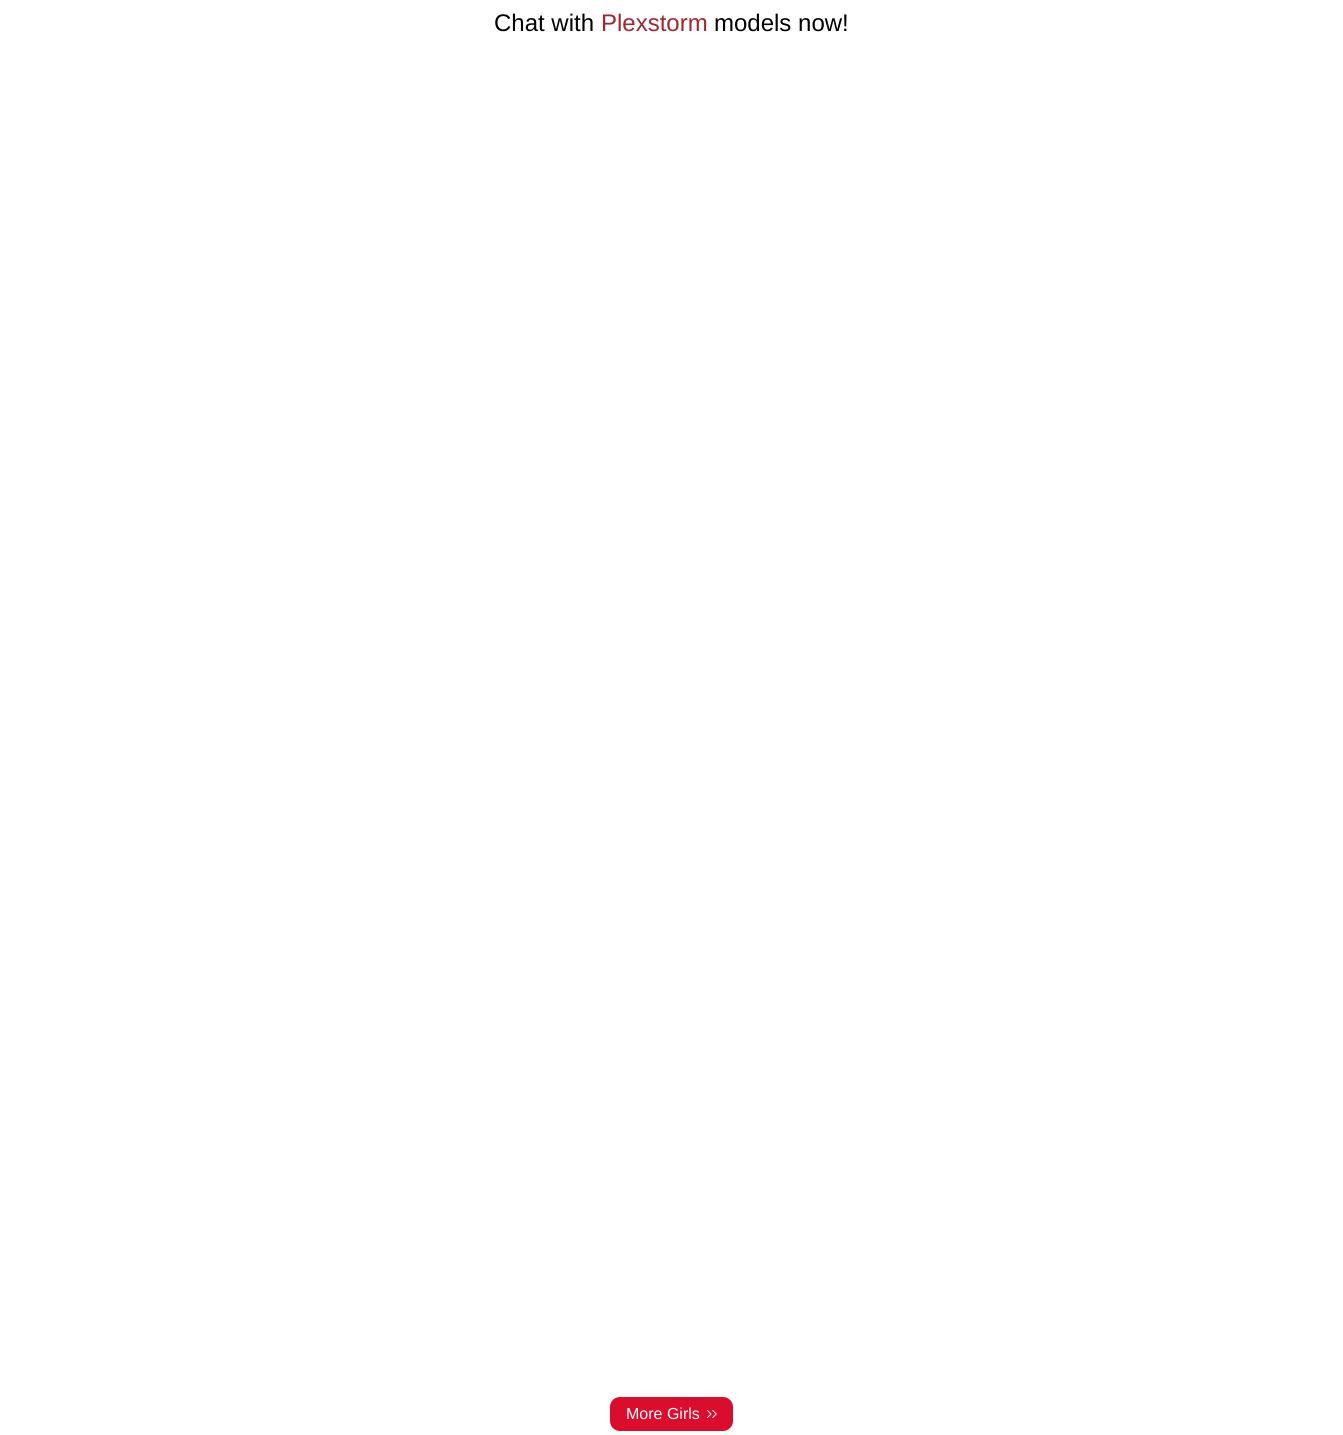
import math
import cairo


def use_color(cr, r, g, b):
  cr.set_source_rgb(r / 255, g / 255, b / 255)

def text(cr, x, y, s, family, size, color, bold=False, italic=False):
  cr.select_font_face(family, cairo.FONT_SLANT_ITALIC if italic else cairo.FONT_SLANT_NORMAL, cairo.FONT_WEIGHT_BOLD if bold else cairo.FONT_WEIGHT_NORMAL)
  cr.set_font_size(size)
  use_color(cr, *color)
  cr.move_to(x, y)
  cr.show_text(s)

def round_rect(cr, x, y, w, h, r):
  cr.new_sub_path()
  for i, (u, v) in enumerate([(x + w - r, y + h - r), (x + r, y + h - r), (x + r, y + r), (x + w - r, y + r)]):
    cr.arc(u, v, r, i * math.pi / 2, (i + 1) * math.pi / 2)
  cr.close_path()

def picture(cr, path, x, y, w, h):
  cr.save()
  cr.set_source_surface(cairo.ImageSurface.create_from_png(path), x, y)
  cr.rectangle(x, y, w, h)
  cr.fill()
  cr.restore()

def draw(cr):
  use_color(cr, 255, 255, 255)
  cr.paint()
  use_color(cr, 220, 12, 44)
  round_rect(cr, 610, 1397, 123, 34, 10)
  cr.fill()
  picture(cr, "img_01.png", 707, 1410, 10, 8)
  text(cr, 494, 31, "Chat with", "Liberation Sans", 24, (0, 0, 0))
  text(cr, 601, 31, "Plexstorm", "Liberation Sans", 24, (162, 38, 46))
  text(cr, 714, 31, "models now!", "Liberation Sans", 24, (0, 0, 0))
  text(cr, 626, 1419, "More Girls", "Liberation Sans", 16, (255, 255, 255))


surface = cairo.ImageSurface(cairo.FORMAT_RGB24, 1343, 1435)
cr = cairo.Context(surface)
options = cairo.FontOptions()
options.set_hint_metrics(cairo.HINT_METRICS_OFF)
options.set_hint_style(cairo.HINT_STYLE_NONE)
cr.set_font_options(options)
cr.set_miter_limit(4)
draw(cr)
surface.write_to_png("out.png")
